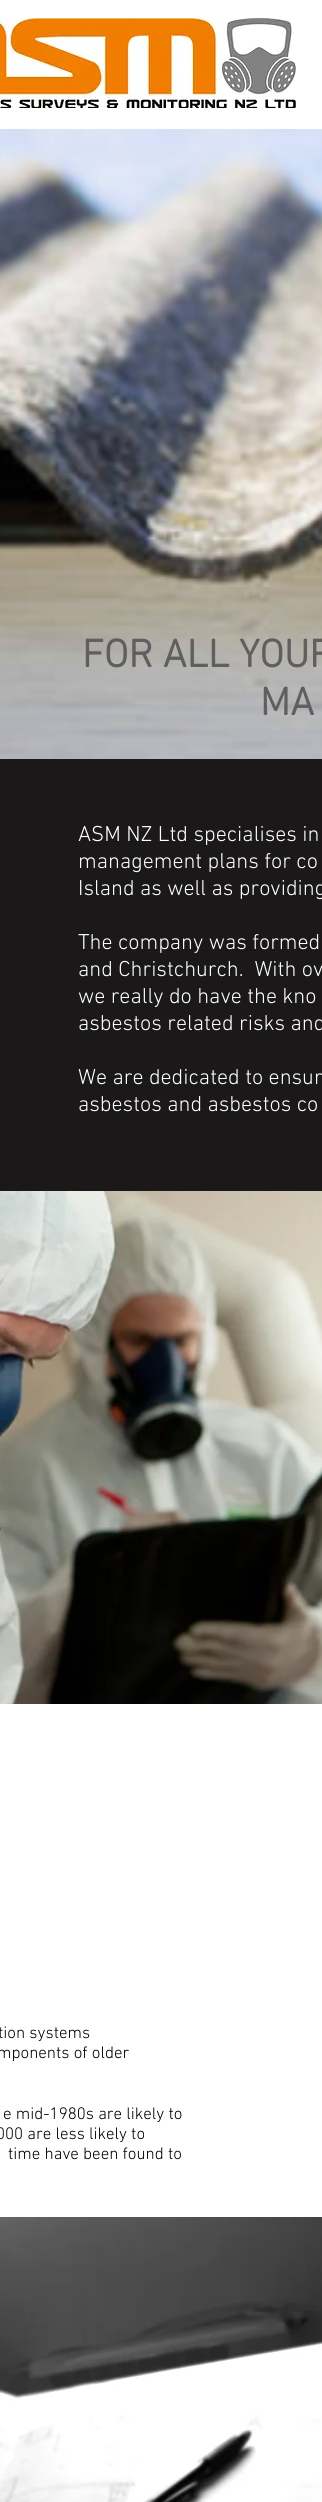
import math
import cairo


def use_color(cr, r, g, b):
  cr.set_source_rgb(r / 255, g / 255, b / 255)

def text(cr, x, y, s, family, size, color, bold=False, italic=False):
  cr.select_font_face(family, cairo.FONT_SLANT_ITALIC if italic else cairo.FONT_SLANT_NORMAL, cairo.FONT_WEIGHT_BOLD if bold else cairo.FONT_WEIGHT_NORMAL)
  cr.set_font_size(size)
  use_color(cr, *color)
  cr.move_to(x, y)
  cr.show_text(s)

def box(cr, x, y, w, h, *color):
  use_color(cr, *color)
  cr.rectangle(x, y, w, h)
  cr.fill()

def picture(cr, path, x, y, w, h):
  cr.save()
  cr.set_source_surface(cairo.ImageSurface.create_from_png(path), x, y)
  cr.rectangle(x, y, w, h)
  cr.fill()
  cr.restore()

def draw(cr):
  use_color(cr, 26, 24, 24)
  cr.paint()
  box(cr, 0, 0, 322, 129, 255, 255, 255)
  picture(cr, "img_01.png", 0, 18, 296, 90)
  picture(cr, "img_02.png", 0, 129, 322, 630)
  picture(cr, "img_03.png", 0, 1191, 322, 513)
  box(cr, 0, 1704, 322, 513, 255, 255, 255)
  picture(cr, "img_04.png", 0, 2217, 322, 285)
  text(cr, 82, 667, "FOR ALL YOUR", "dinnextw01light", 40, (96, 94, 94), bold=True)
  text(cr, 260, 715, "MA", "dinnextw01light", 40, (96, 94, 94), bold=True)
  text(cr, 78, 841, "ASM NZ Ltd specialises in", "dinnextw01light Light", 22, (255, 255, 255))
  text(cr, 78, 868, "management plans for co", "dinnextw01light Light", 22, (255, 255, 255))
  text(cr, 78, 895, "Island as well as providing", "dinnextw01light Light", 22, (255, 255, 255))
  text(cr, 78, 949, "The company was formed", "dinnextw01light Light", 22, (255, 255, 255))
  text(cr, 78, 976, "and Christchurch.  With ov", "dinnextw01light Light", 22, (255, 255, 255))
  text(cr, 78, 1003, "we really do have the kno", "dinnextw01light Light", 22, (255, 255, 255))
  text(cr, 78, 1030, "asbestos related risks and", "dinnextw01light Light", 22, (255, 255, 255))
  text(cr, 78, 1084, "We are dedicated to ensur", "dinnextw01light Light", 22, (255, 255, 255))
  text(cr, 78, 1111, "asbestos and asbestos co", "dinnextw01light Light", 22, (255, 255, 255))
  text(cr, -2, 2038, "tion systems", "dinnextw01light Light", 17, (0, 0, 0))
  text(cr, -3, 2058, "mponents of older", "dinnextw01light Light", 17, (0, 0, 0))
  text(cr, 3, 2119, "e mid-1980s are likely to", "dinnextw01light Light", 17, (0, 0, 0))
  text(cr, -4, 2139, "000 are less likely to", "dinnextw01light Light", 17, (0, 0, 0))
  text(cr, 8, 2159, "time have been found to", "dinnextw01light Light", 17, (0, 0, 0))


surface = cairo.ImageSurface(cairo.FORMAT_RGB24, 322, 2502)
cr = cairo.Context(surface)
options = cairo.FontOptions()
options.set_hint_metrics(cairo.HINT_METRICS_OFF)
options.set_hint_style(cairo.HINT_STYLE_NONE)
cr.set_font_options(options)
cr.set_miter_limit(4)
draw(cr)
surface.write_to_png("out.png")
